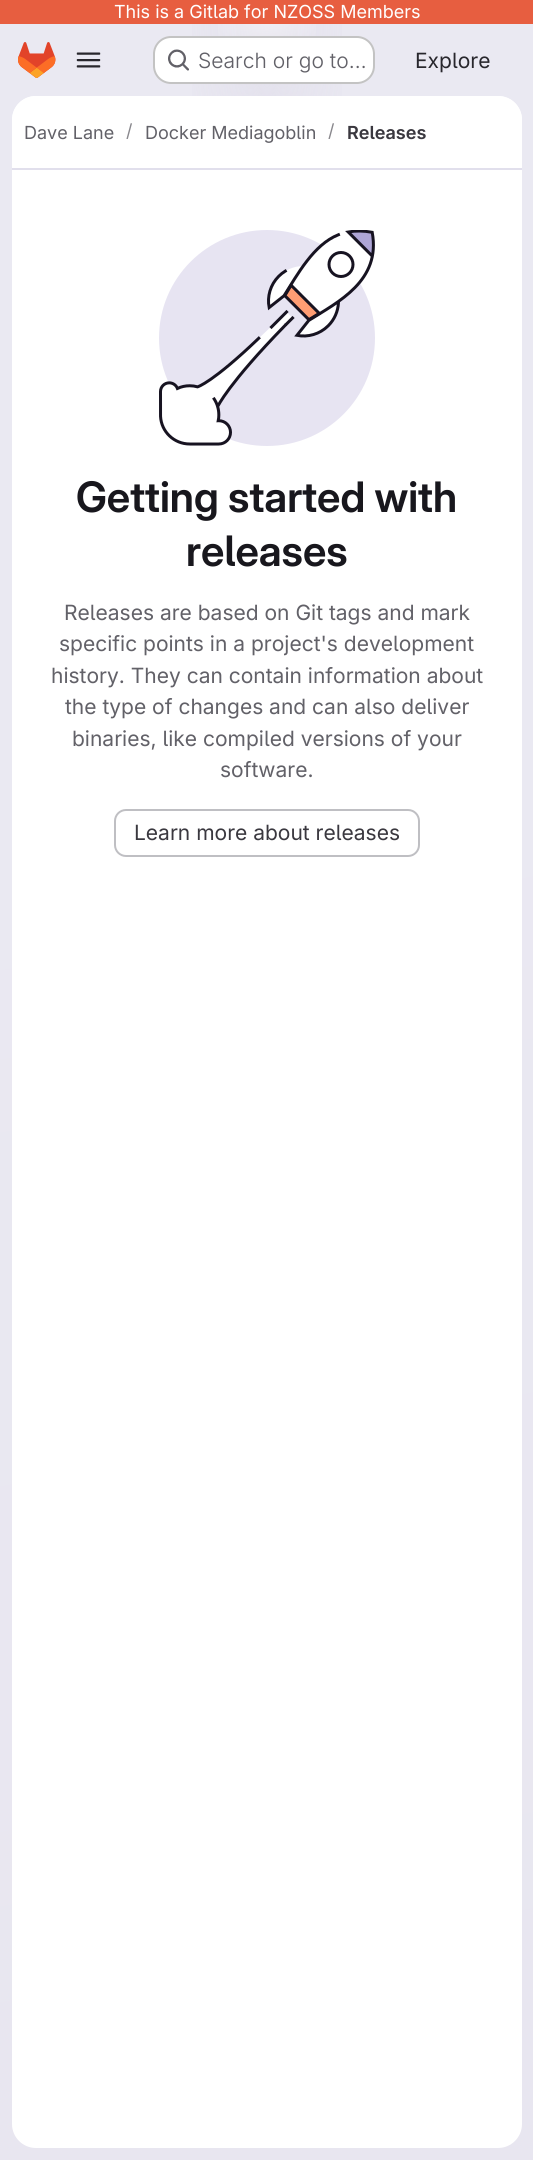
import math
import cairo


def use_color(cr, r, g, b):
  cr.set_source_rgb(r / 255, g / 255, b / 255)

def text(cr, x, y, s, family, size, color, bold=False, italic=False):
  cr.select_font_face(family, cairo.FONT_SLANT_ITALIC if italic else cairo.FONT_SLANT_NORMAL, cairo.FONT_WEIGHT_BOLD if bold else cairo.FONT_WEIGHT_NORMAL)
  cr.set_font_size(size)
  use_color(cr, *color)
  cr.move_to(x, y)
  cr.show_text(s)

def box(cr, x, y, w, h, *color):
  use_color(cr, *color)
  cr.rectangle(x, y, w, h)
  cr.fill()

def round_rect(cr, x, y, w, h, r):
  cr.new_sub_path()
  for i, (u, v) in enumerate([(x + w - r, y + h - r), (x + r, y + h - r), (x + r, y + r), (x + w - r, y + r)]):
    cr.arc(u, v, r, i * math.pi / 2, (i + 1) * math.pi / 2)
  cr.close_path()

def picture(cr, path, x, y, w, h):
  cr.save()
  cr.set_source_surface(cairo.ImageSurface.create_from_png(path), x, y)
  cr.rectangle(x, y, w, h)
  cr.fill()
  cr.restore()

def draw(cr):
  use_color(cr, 255, 255, 255)
  cr.paint()
  gradient = cairo.LinearGradient(460, 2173, 74, -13)
  gradient.add_color_stop_rgba(0, 0.91, 0.902, 0.941, 1)
  gradient.add_color_stop_rgba(0.7, 0.918, 0.914, 0.949, 1)
  cr.set_source(gradient)
  cr.rectangle(0, 24, 533, 2136)
  cr.fill()
  gradient = cairo.RadialGradient(0, 0, 0, 0, 0, 1)
  gradient.set_matrix(cairo.Matrix(1 / 267, 0, 0, 1 / 2160, -1 * 267 / 267, -1 * 0 / 2160))
  gradient.add_color_stop_rgba(0, 0.894, 0.886, 0.929, 1)
  gradient.add_color_stop_rgba(0.39, 0.894, 0.886, 0.929, 0)
  cr.set_source(gradient)
  cr.rectangle(192, 24, 150, 72)
  cr.fill()
  gradient = cairo.RadialGradient(0, 0, 0, 0, 0, 1)
  gradient.set_matrix(cairo.Matrix(1 / 267, 0, 0, 1 / 2160, -1 * 267 / 267, -1 * 0 / 2160))
  gradient.add_color_stop_rgba(0, 0.894, 0.886, 0.925, 1)
  gradient.add_color_stop_rgba(0.28, 0.894, 0.886, 0.925, 0)
  cr.set_source(gradient)
  cr.rectangle(236, 24, 62, 61)
  cr.fill()
  gradient = cairo.RadialGradient(267, 0, 0, 267, 0, 2176)
  gradient.add_color_stop_rgba(0, 1, 1, 1, 0.6)
  gradient.add_color_stop_rgba(0.03, 1, 1, 1, 0)
  cr.set_source(gradient)
  cr.rectangle(218, 24, 98, 12)
  cr.fill()
  box(cr, 0, 0, 533, 24, 231, 94, 64)
  picture(cr, "img_01.png", 18, 42, 38, 36)
  picture(cr, "img_02.png", 76, 52, 25, 16)
  use_color(cr, 255, 255, 255)
  round_rect(cr, 153, 36, 222, 48, 18)
  cr.fill()
  round_rect(cr, 154, 37, 220, 46, 17)
  cr.set_source_rgba(0.02, 0.02, 0.024, 0.24)
  cr.stroke()
  picture(cr, "img_03.png", 168, 49, 21, 22)
  use_color(cr, 255, 255, 255)
  round_rect(cr, 12, 96, 510, 2052, 24)
  cr.fill()
  cr.new_path()
  cr.move_to(36, 96)
  cr.line_to(498, 96)
  cr.curve_to(511.5, 96, 522, 106.5, 522, 120)
  cr.line_to(522, 170)
  cr.line_to(12, 170)
  cr.line_to(12, 120)
  cr.curve_to(12, 106.5, 22.5, 96, 36, 96)
  cr.close_path()
  cr.fill()
  box(cr, 12, 168, 510, 2, 225, 223, 236)
  picture(cr, "img_04.png", 159, 230, 216, 216)
  round_rect(cr, 115, 810, 304, 46, 11)
  use_color(cr, 191, 191, 195)
  cr.stroke()
  text(cr, 114, 18, "This is a Gitlab for NZOSS Members", "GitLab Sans", 18, (255, 255, 255))
  text(cr, 198, 68, "Search or go to…", "GitLab Sans Light", 21, (98, 97, 104))
  text(cr, 415, 68, "Explore", "GitLab Sans", 21, (40, 39, 45))
  text(cr, 24, 139, "Dave Lane", "GitLab Sans", 18, (98, 97, 104))
  text(cr, 126, 137, "/", "GitLab Sans", 18, (137, 136, 141))
  text(cr, 145, 139, "Docker Mediagoblin", "GitLab Sans", 18, (98, 97, 104))
  text(cr, 328, 137, "/", "GitLab Sans", 18, (137, 136, 141))
  text(cr, 347, 139, "Releases", "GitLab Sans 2 SemiBold", 18, (58, 56, 63))
  text(cr, 76, 512, "Getting started with", "GitLab Sans SemiBold", 42, (24, 23, 29))
  text(cr, 186, 566, "releases", "GitLab Sans SemiBold", 42, (24, 23, 29))
  text(cr, 64, 620, "Releases are based on Git tags and mark", "GitLab Sans", 21, (98, 97, 104))
  text(cr, 59, 651, "specific points in a project's development", "GitLab Sans", 21, (98, 97, 104))
  text(cr, 51, 683, "history. They can contain information about", "GitLab Sans", 21, (98, 97, 104))
  text(cr, 65, 714, "the type of changes and can also deliver", "GitLab Sans", 21, (98, 97, 104))
  text(cr, 72, 746, "binaries, like compiled versions of your", "GitLab Sans", 21, (98, 97, 104))
  text(cr, 220, 777, "software.", "GitLab Sans", 21, (98, 97, 104))
  text(cr, 134, 840, "Learn more about releases", "GitLab Sans", 21, (58, 56, 63))


surface = cairo.ImageSurface(cairo.FORMAT_RGB24, 533, 2160)
cr = cairo.Context(surface)
options = cairo.FontOptions()
options.set_hint_metrics(cairo.HINT_METRICS_OFF)
options.set_hint_style(cairo.HINT_STYLE_NONE)
cr.set_font_options(options)
cr.set_miter_limit(4)
draw(cr)
surface.write_to_png("out.png")
